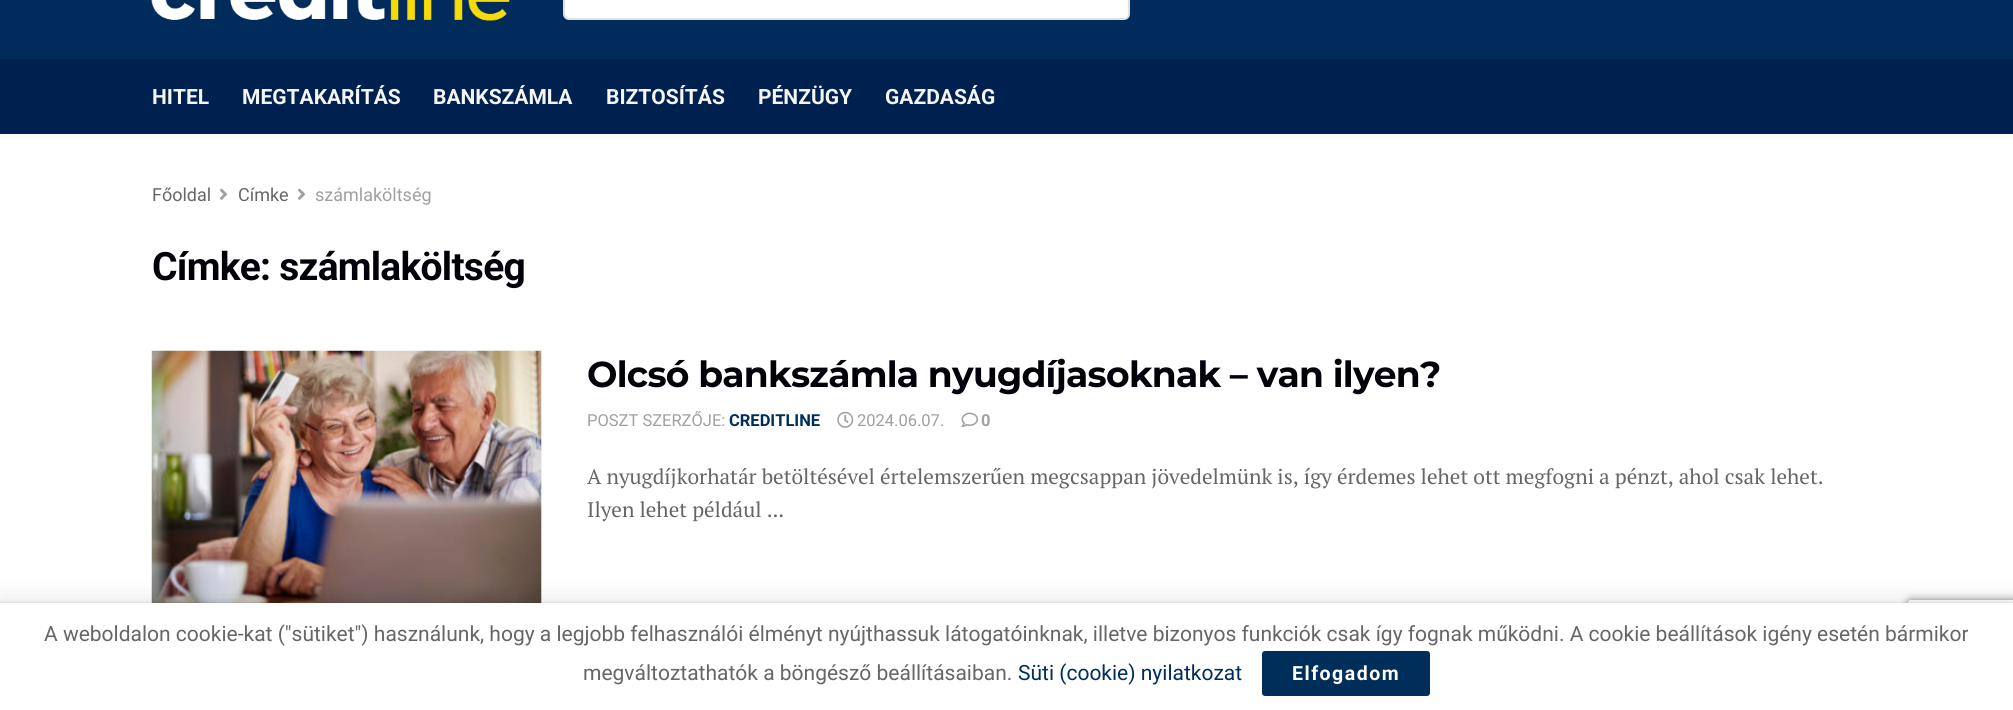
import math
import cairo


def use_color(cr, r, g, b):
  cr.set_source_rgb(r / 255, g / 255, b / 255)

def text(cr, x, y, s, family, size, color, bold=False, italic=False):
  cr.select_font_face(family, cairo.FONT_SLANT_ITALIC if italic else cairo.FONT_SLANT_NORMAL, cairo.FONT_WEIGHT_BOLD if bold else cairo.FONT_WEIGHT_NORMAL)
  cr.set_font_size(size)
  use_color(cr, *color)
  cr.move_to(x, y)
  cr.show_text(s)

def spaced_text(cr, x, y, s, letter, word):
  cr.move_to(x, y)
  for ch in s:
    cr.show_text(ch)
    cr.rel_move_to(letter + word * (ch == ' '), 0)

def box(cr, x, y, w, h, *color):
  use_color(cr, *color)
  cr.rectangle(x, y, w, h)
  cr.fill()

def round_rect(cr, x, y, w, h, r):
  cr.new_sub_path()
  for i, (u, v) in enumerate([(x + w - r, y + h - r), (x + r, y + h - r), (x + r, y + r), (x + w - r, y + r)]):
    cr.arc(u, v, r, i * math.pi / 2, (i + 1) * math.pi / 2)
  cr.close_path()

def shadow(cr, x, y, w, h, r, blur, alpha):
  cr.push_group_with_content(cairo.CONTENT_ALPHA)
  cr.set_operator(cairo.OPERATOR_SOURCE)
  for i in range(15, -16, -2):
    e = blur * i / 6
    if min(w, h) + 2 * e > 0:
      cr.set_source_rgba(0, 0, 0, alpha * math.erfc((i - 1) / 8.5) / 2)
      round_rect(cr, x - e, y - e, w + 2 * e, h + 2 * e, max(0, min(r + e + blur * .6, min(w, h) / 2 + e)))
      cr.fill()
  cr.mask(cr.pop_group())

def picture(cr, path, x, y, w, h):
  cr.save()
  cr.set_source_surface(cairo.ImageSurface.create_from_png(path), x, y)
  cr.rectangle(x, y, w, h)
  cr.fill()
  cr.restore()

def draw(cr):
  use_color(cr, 255, 255, 255)
  cr.paint()
  box(cr, 0, 0, 2013, 59, 0, 43, 90)
  picture(cr, "img_01.png", 151, 0, 359, 21)
  use_color(cr, 255, 255, 255)
  round_rect(cr, 564, -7, 565, 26, 5)
  cr.fill_preserve()
  use_color(cr, 224, 224, 224)
  cr.stroke()
  box(cr, 0, 59, 2013, 75, 0, 33, 79)
  picture(cr, "img_02.png", 220, 188, 7, 12)
  picture(cr, "img_02.png", 298, 188, 7, 12)
  box(cr, 541, 351, 1, 252, 247, 247, 247)
  picture(cr, "img_04.png", 479, 350, 62, 1)
  picture(cr, "img_03.png", 151, 350, 391, 253)
  picture(cr, "img_05.png", 837, 411, 17, 17)
  picture(cr, "img_06.png", 961, 412, 17, 15)
  cr.save()
  cr.set_fill_rule(cairo.FILL_RULE_EVEN_ODD)
  cr.new_path()
  cr.move_to(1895, 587)
  cr.line_to(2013, 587)
  cr.line_to(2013, 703)
  cr.line_to(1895, 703)
  cr.close_path()
  cr.move_to(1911, 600)
  cr.line_to(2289, 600)
  cr.curve_to(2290.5, 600, 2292, 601.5, 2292, 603)
  cr.line_to(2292, 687)
  cr.curve_to(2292, 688.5, 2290.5, 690, 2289, 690)
  cr.line_to(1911, 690)
  cr.curve_to(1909.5, 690, 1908, 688.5, 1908, 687)
  cr.line_to(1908, 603)
  cr.curve_to(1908, 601.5, 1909.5, 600, 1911, 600)
  cr.close_path()
  cr.clip()
  use_color(cr, 128, 128, 128)
  shadow(cr, 1908, 600, 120, 90, 3, 4, 1)
  cr.restore()
  use_color(cr, 0, 0, 0)
  shadow(cr, 0, 606, 2013, 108, 0, 15, 0.15)
  shadow(cr, 0, 603, 2013, 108, 0, 1, 0.2)
  box(cr, 0, 603, 2013, 107, 255, 255, 255)
  use_color(cr, 0, 46, 91)
  round_rect(cr, 1262, 651, 168, 45, 3)
  cr.fill()
  text(cr, 152, 104, "HITEL", "Roboto", 21, (245, 245, 245), bold=True)
  text(cr, 242, 104, "MEGTAKARÍTÁS", "Roboto", 21, (245, 245, 245), bold=True)
  text(cr, 433, 104, "BANKSZÁMLA", "Roboto", 21, (245, 245, 245), bold=True)
  text(cr, 606, 104, "BIZTOSÍTÁS", "Roboto", 21, (245, 245, 245), bold=True)
  text(cr, 758, 104, "PÉNZÜGY", "Roboto", 21, (245, 245, 245), bold=True)
  text(cr, 885, 104, "GAZDASÁG", "Roboto", 21, (245, 245, 245), bold=True)
  text(cr, 152, 201, "Főoldal", "Roboto", 18, (102, 102, 102))
  text(cr, 238, 201, "Címke", "Roboto", 18, (102, 102, 102))
  text(cr, 315, 201, "számlaköltség", "Roboto", 18, (160, 160, 160))
  cr.select_font_face("Roboto", cairo.FONT_SLANT_NORMAL, cairo.FONT_WEIGHT_BOLD)
  cr.set_font_size(39)
  use_color(cr, 2, 1, 10)
  spaced_text(cr, 152, 280, "Címke: számlaköltség", -0.75, 0)
  cr.select_font_face("Montserrat", cairo.FONT_SLANT_NORMAL, cairo.FONT_WEIGHT_BOLD)
  cr.set_font_size(36)
  spaced_text(cr, 587, 387, "Olcsó bankszámla nyugdíjasoknak – van ilyen?", -0.7, 0)
  text(cr, 587, 426, "POSZT SZERZŐJE:", "Roboto", 16.5, (160, 160, 160))
  text(cr, 729, 426, "CREDITLINE", "Roboto", 16.5, (0, 46, 91), bold=True)
  text(cr, 857, 426, "2024.06.07.", "Roboto", 16.5, (160, 160, 160))
  text(cr, 981, 426, "0", "Roboto", 16.5, (160, 160, 160), bold=True)
  text(cr, 587, 484, "A nyugdíjkorhatár betöltésével értelemszerűen megcsappan jövedelmünk is, így érdemes lehet ott megfogni a pénzt, ahol csak lehet.", "PT Serif", 21, (102, 102, 102))
  text(cr, 587, 517, "Ilyen lehet például ...", "PT Serif", 21, (102, 102, 102))
  text(cr, 44, 641, "A weboldalon cookie-kat (\"sütiket\") használunk, hogy a legjobb felhasználói élményt nyújthassuk látogatóinknak, illetve bizonyos funkciók csak így fognak működni. A cookie beállítások igény esetén bármikor", "Roboto", 21, (102, 102, 102))
  text(cr, 583, 680, "megváltoztathatók a böngésző beállításaiban.", "Roboto", 21, (102, 102, 102))
  text(cr, 1018, 680, "Süti (cookie) nyilatkozat", "Roboto", 21, (0, 46, 91))
  cr.select_font_face("Roboto", cairo.FONT_SLANT_NORMAL, cairo.FONT_WEIGHT_BOLD)
  cr.set_font_size(19.5)
  use_color(cr, 255, 255, 255)
  spaced_text(cr, 1292, 680, "Elfogadom", 1.5, 0)


surface = cairo.ImageSurface(cairo.FORMAT_RGB24, 2013, 710)
cr = cairo.Context(surface)
options = cairo.FontOptions()
options.set_hint_metrics(cairo.HINT_METRICS_OFF)
options.set_hint_style(cairo.HINT_STYLE_NONE)
cr.set_font_options(options)
cr.set_miter_limit(4)
draw(cr)
surface.write_to_png("out.png")
